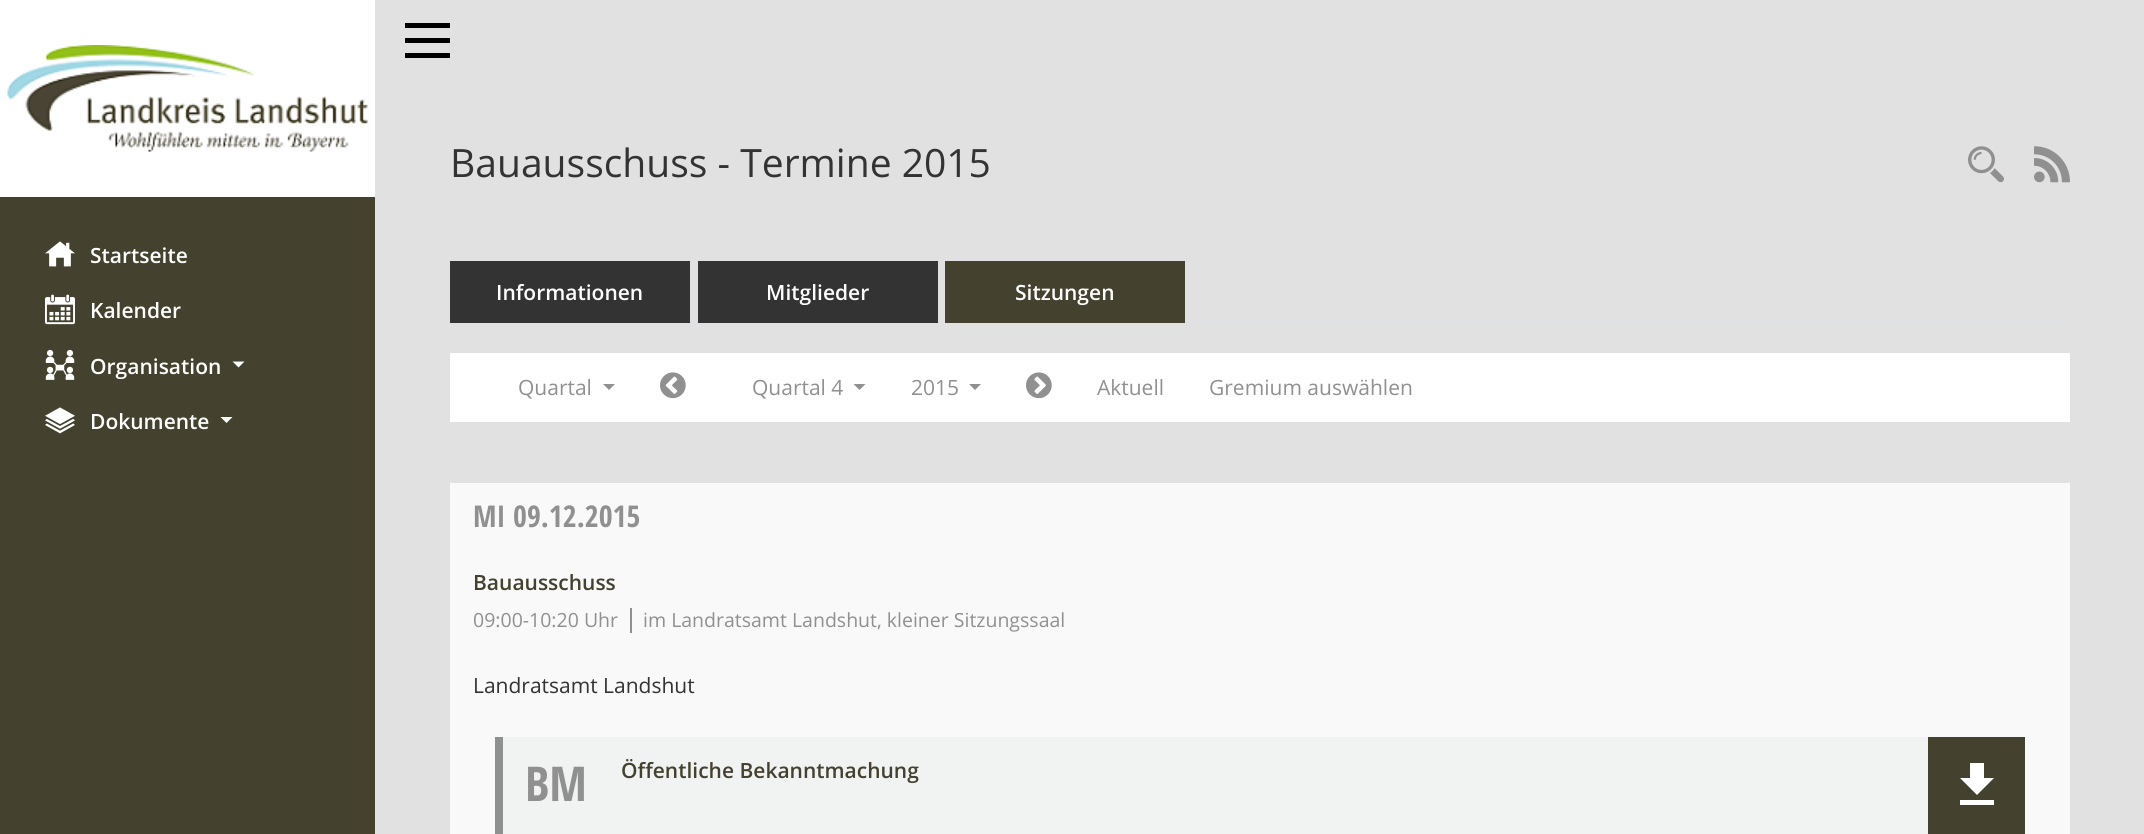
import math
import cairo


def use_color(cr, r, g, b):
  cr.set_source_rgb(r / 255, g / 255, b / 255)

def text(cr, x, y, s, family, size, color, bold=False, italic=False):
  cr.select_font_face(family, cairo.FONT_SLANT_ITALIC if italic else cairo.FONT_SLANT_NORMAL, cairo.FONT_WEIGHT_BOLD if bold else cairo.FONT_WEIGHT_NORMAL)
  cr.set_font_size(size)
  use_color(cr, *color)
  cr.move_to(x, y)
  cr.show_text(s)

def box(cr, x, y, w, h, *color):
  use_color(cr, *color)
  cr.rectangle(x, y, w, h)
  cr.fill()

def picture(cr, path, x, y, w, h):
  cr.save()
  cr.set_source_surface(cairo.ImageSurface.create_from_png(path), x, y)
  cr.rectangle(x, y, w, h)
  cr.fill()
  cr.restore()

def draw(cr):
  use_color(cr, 225, 225, 225)
  cr.paint()
  box(cr, 0, 197, 375, 637, 68, 65, 46)
  box(cr, 0, 0, 375, 197, 255, 255, 255)
  picture(cr, "img_01.png", 7, 45, 361, 107)
  picture(cr, "img_02.png", 45, 241, 30, 26)
  picture(cr, "img_03.png", 45, 294, 30, 31)
  picture(cr, "img_04.png", 45, 349, 30, 31)
  cr.new_path()
  cr.move_to(232.5, 361.5)
  cr.line_to(244.5, 361.5)
  cr.line_to(238.5, 367.5)
  cr.close_path()
  cr.fill()
  picture(cr, "img_05.png", 45, 407, 30, 27)
  cr.new_path()
  cr.move_to(220.5, 417)
  cr.line_to(232.5, 417)
  cr.line_to(226.5, 423)
  cr.close_path()
  cr.fill()
  box(cr, 405, 23, 45, 5, 0, 0, 0)
  box(cr, 405, 38, 45, 5, 0, 0, 0)
  box(cr, 405, 53, 45, 5, 0, 0, 0)
  picture(cr, "img_06.png", 1968, 146, 36, 37)
  picture(cr, "img_07.png", 2034, 146, 36, 37)
  box(cr, 690, 321, 1380, 2, 222, 226, 230)
  box(cr, 450, 261, 240, 62, 51, 51, 51)
  box(cr, 698, 261, 240, 62, 51, 51, 51)
  box(cr, 945, 261, 240, 62, 68, 65, 46)
  box(cr, 450, 353, 1620, 69, 255, 255, 255)
  use_color(cr, 144, 144, 144)
  cr.new_path()
  cr.move_to(603, 384)
  cr.line_to(615, 384)
  cr.line_to(609, 390)
  cr.close_path()
  cr.fill()
  picture(cr, "img_08.png", 660, 372, 26, 27)
  cr.new_path()
  cr.move_to(853.5, 384)
  cr.line_to(865.5, 384)
  cr.line_to(859.5, 390)
  cr.close_path()
  cr.fill()
  cr.new_path()
  cr.move_to(969, 384)
  cr.line_to(981, 384)
  cr.line_to(975, 390)
  cr.close_path()
  cr.fill()
  picture(cr, "img_09.png", 1026, 372, 26, 27)
  box(cr, 450, 483, 1620, 351, 249, 249, 249)
  box(cr, 630, 608, 2, 25, 144, 144, 144)
  box(cr, 503, 737, 1425, 97, 240, 243, 242)
  box(cr, 495, 737, 8, 97, 144, 144, 144)
  box(cr, 1928, 737, 97, 97, 68, 65, 46)
  use_color(cr, 255, 255, 255)
  cr.new_path()
  cr.move_to(1994, 778)
  cr.line_to(1984, 778)
  cr.line_to(1984, 763)
  cr.line_to(1970, 763)
  cr.line_to(1970, 778)
  cr.line_to(1960, 778)
  cr.line_to(1977, 795)
  cr.close_path()
  cr.move_to(1960, 800)
  cr.line_to(1960, 805)
  cr.line_to(1994, 805)
  cr.line_to(1994, 800)
  cr.close_path()
  cr.fill()
  text(cr, 90, 263, "Startseite", "Open Sans SemiBold", 21, (255, 255, 255))
  text(cr, 90, 318, "Kalender", "Open Sans SemiBold", 21, (255, 255, 255))
  text(cr, 90, 374, "Organisation", "Open Sans SemiBold", 21, (255, 255, 255))
  text(cr, 90, 429, "Dokumente", "Open Sans SemiBold", 21, (255, 255, 255))
  text(cr, 450, 177, "Bauausschuss - Termine 2015", "Open Sans", 39, (51, 51, 51))
  text(cr, 496, 300, "Informationen", "Open Sans SemiBold", 21, (255, 255, 255))
  text(cr, 766, 300, "Mitglieder", "Open Sans SemiBold", 21, (255, 255, 255))
  text(cr, 1015, 300, "Sitzungen", "Open Sans SemiBold", 21, (255, 255, 255))
  text(cr, 518, 395, "Quartal", "Open Sans", 21, (144, 144, 144))
  text(cr, 752, 395, "Quartal 4", "Open Sans", 21, (144, 144, 144))
  text(cr, 911, 395, "2015", "Open Sans", 21, (144, 144, 144))
  text(cr, 1097, 395, "Aktuell", "Open Sans", 21, (144, 144, 144))
  text(cr, 1209, 395, "Gremium auswählen", "Open Sans", 21, (144, 144, 144))
  text(cr, 473, 527, "MI", "Open Sans Condensed", 30, (144, 144, 144), bold=True)
  text(cr, 513, 527, "09.12.2015", "Open Sans Condensed", 30, (144, 144, 144), bold=True)
  text(cr, 473, 590, "Bauausschuss", "Open Sans SemiBold", 21, (68, 65, 46))
  text(cr, 473, 627, "09:00-10:20 Uhr", "Open Sans", 19.5, (144, 144, 144))
  text(cr, 643, 627, "im Landratsamt Landshut, kleiner Sitzungssaal", "Open Sans", 19.5, (144, 144, 144))
  text(cr, 473, 693, "Landratsamt Landshut", "Open Sans", 21, (51, 51, 51))
  text(cr, 525, 801, "BM", "Open Sans Condensed", 48, (144, 144, 144), bold=True)
  text(cr, 621, 778, "Öffentliche Bekanntmachung", "Open Sans SemiBold", 21, (68, 65, 46))


surface = cairo.ImageSurface(cairo.FORMAT_RGB24, 2144, 834)
cr = cairo.Context(surface)
options = cairo.FontOptions()
options.set_hint_metrics(cairo.HINT_METRICS_OFF)
options.set_hint_style(cairo.HINT_STYLE_NONE)
cr.set_font_options(options)
cr.set_miter_limit(4)
draw(cr)
surface.write_to_png("out.png")
